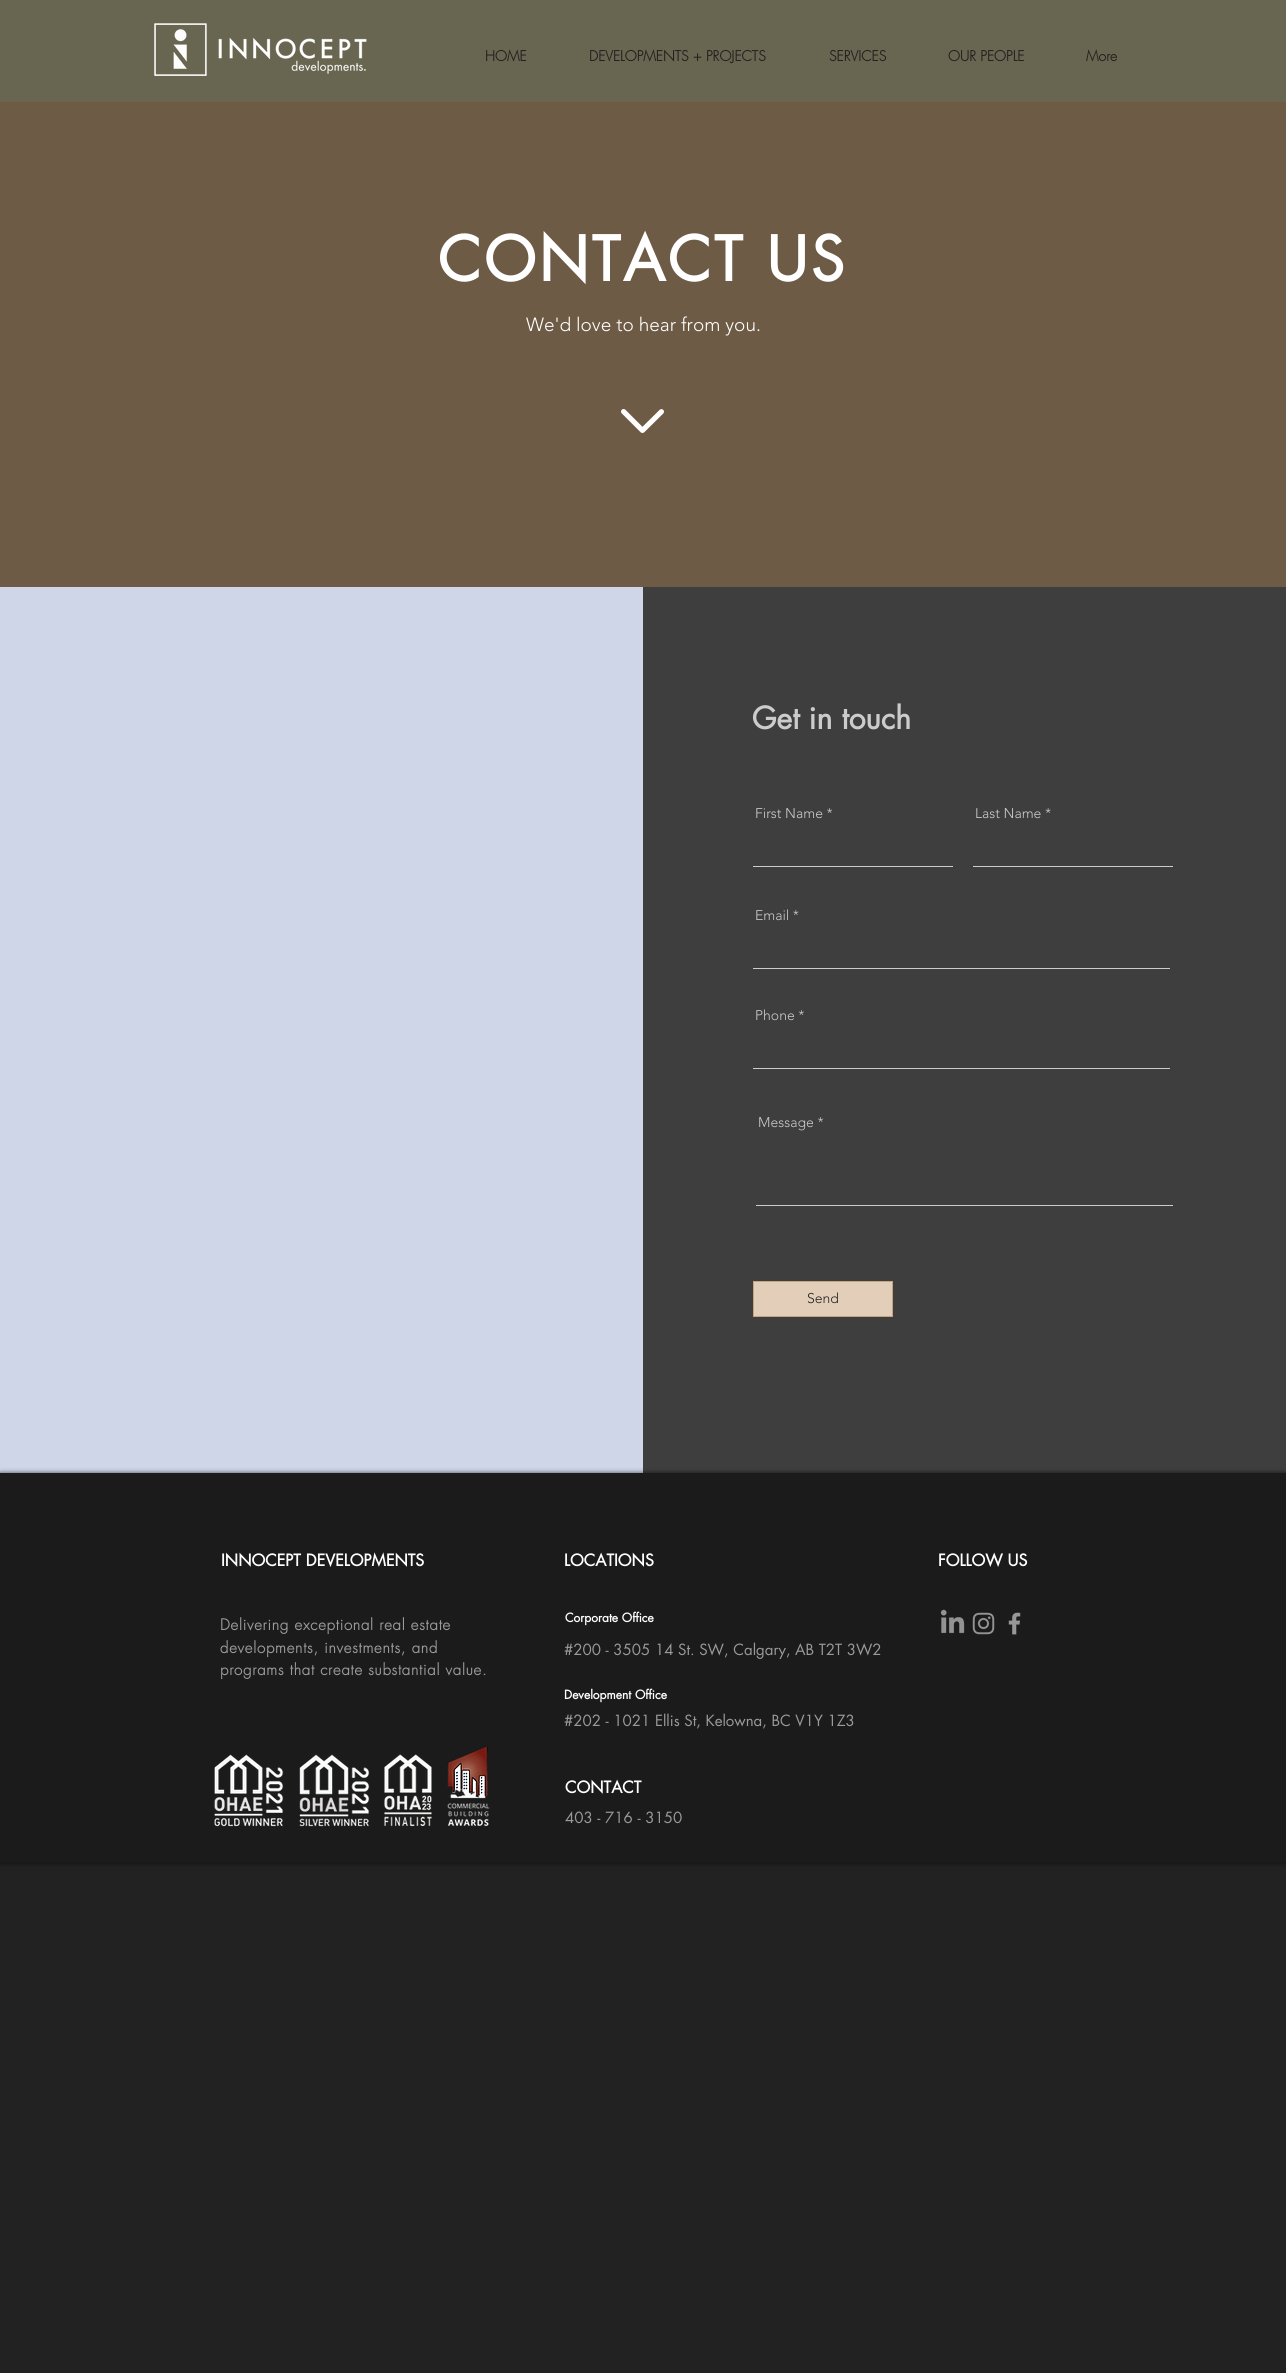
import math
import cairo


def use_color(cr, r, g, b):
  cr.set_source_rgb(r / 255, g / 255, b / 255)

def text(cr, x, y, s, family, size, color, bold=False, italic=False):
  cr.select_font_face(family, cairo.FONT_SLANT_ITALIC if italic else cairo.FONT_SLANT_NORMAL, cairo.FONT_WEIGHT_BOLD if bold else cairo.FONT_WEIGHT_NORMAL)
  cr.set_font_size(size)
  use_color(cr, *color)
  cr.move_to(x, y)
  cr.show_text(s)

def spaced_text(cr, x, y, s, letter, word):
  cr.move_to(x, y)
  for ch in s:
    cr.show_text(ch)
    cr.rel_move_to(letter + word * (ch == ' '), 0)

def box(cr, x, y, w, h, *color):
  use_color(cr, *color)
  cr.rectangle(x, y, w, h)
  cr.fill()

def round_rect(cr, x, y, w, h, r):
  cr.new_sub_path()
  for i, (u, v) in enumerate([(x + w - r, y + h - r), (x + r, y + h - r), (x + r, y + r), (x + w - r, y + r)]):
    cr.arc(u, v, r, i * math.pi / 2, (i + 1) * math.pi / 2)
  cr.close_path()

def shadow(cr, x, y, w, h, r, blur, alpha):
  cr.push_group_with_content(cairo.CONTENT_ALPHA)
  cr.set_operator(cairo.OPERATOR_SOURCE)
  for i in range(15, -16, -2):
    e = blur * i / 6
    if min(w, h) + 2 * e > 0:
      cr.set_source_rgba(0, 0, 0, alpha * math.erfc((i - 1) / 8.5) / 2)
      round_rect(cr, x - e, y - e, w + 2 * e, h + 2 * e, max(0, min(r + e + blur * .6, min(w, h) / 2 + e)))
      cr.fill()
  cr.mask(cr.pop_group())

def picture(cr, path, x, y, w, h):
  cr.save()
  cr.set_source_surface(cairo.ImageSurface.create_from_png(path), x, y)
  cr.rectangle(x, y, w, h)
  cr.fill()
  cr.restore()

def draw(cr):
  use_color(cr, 34, 34, 34)
  cr.paint()
  box(cr, 0, 0, 1286, 102, 104, 102, 80)
  picture(cr, "img_01.png", 154, 23, 213, 53)
  box(cr, 0, 102, 1286, 485, 110, 91, 70)
  picture(cr, "img_02.png", 621, 409, 43, 24)
  box(cr, 643, 587, 643, 886, 62, 62, 62)
  box(cr, 0, 587, 643, 886, 207, 214, 232)
  box(cr, 753, 866, 200, 1, 204, 204, 204)
  box(cr, 973, 866, 200, 1, 204, 204, 204)
  box(cr, 753, 968, 417, 1, 204, 204, 204)
  box(cr, 753, 1068, 417, 1, 204, 204, 204)
  box(cr, 756, 1205, 417, 1, 204, 204, 204)
  use_color(cr, 227, 207, 185)
  cr.rectangle(753.5, 1281.5, 139, 35)
  cr.fill_preserve()
  use_color(cr, 198, 164, 126)
  cr.set_line_width(1)
  cr.stroke()
  use_color(cr, 0, 0, 0)
  shadow(cr, 0, 1473, 1286, 390, 0, 2.5, 0.66)
  box(cr, 0, 1473, 1286, 390, 27, 27, 27)
  picture(cr, "img_03.png", 940, 1609, 25, 25)
  picture(cr, "img_04.png", 972, 1612, 23, 23)
  picture(cr, "img_05.png", 1008, 1612, 13, 23)
  picture(cr, "img_06.png", 214, 1745, 276, 82)
  text(cr, 485, 61, "HOME", "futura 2", 14, (34, 34, 34), bold=True)
  text(cr, 589, 61, "DEVELOPMENTS + PROJECTS", "futura 2", 14, (34, 34, 34), bold=True)
  text(cr, 829, 61, "SERVICES", "futura 2", 14, (34, 34, 34), bold=True)
  text(cr, 948, 61, "OUR PEOPLE", "futura 2", 14, (34, 34, 34), bold=True)
  text(cr, 1086, 61, "More", "futura 2", 14, (34, 34, 34), bold=True)
  cr.select_font_face("futura", cairo.FONT_SLANT_NORMAL, cairo.FONT_WEIGHT_BOLD)
  cr.set_font_size(60)
  use_color(cr, 255, 255, 255)
  spaced_text(cr, 438, 281, "CONTACT US", 3, 0)
  text(cr, 526, 331, "We'd love to hear from you.", "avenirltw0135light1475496 Light", 19, (255, 255, 255))
  text(cr, 752, 729, "Get in touch", "futura", 30, (204, 204, 204), bold=True)
  text(cr, 755, 818, "First Name *", "avenirltw0135light1475496 Light", 14, (204, 204, 204))
  text(cr, 975, 818, "Last Name *", "avenirltw0135light1475496 Light", 14, (204, 204, 204))
  text(cr, 755, 920, "Email *", "avenirltw0135light1475496 Light", 14, (204, 204, 204))
  text(cr, 755, 1020, "Phone *", "avenirltw0135light1475496 Light", 14, (204, 204, 204))
  text(cr, 758, 1127, "Message *", "avenirltw0135light1475496 Light", 14, (204, 204, 204))
  text(cr, 807, 1303, "Send", "avenirltw0135light1475496 Light", 14, (34, 34, 34))
  text(cr, 221, 1566, "INNOCEPT DEVELOPMENTS", "futura", 16, (255, 255, 255), bold=True)
  text(cr, 564, 1566, "LOCATIONS", "futura", 16, (255, 255, 255), bold=True)
  text(cr, 938, 1566, "FOLLOW US", "futura", 16, (255, 255, 255), bold=True)
  cr.select_font_face("futura 2", cairo.FONT_SLANT_NORMAL, cairo.FONT_WEIGHT_BOLD)
  cr.set_font_size(15)
  use_color(cr, 154, 154, 154)
  spaced_text(cr, 220, 1630, "Delivering exceptional real estate", 0.75, 0)
  spaced_text(cr, 220, 1653, "developments, investments, and", 0.75, 0)
  spaced_text(cr, 220, 1675, "programs that create substantial value.", 0.75, 0)
  text(cr, 565, 1622, "Corporate Office", "futura", 12, (255, 255, 255), bold=True)
  text(cr, 564, 1655, "#200 - 3505 14 St. SW, Calgary, AB T2T 3W2", "futura", 15, (154, 154, 154))
  text(cr, 564, 1699, "Development Office", "futura", 12, (255, 255, 255), bold=True)
  text(cr, 564, 1726, "#202 - 1021 Ellis St, Kelowna, BC V1Y 1Z3", "futura", 15, (154, 154, 154))
  text(cr, 565, 1793, "CONTACT", "futura", 16, (255, 255, 255), bold=True)
  text(cr, 565, 1823, "403 - 716 - 3150", "futura", 15, (154, 154, 154))


surface = cairo.ImageSurface(cairo.FORMAT_RGB24, 1286, 2373)
cr = cairo.Context(surface)
options = cairo.FontOptions()
options.set_hint_metrics(cairo.HINT_METRICS_OFF)
options.set_hint_style(cairo.HINT_STYLE_NONE)
cr.set_font_options(options)
cr.set_miter_limit(4)
draw(cr)
surface.write_to_png("out.png")
